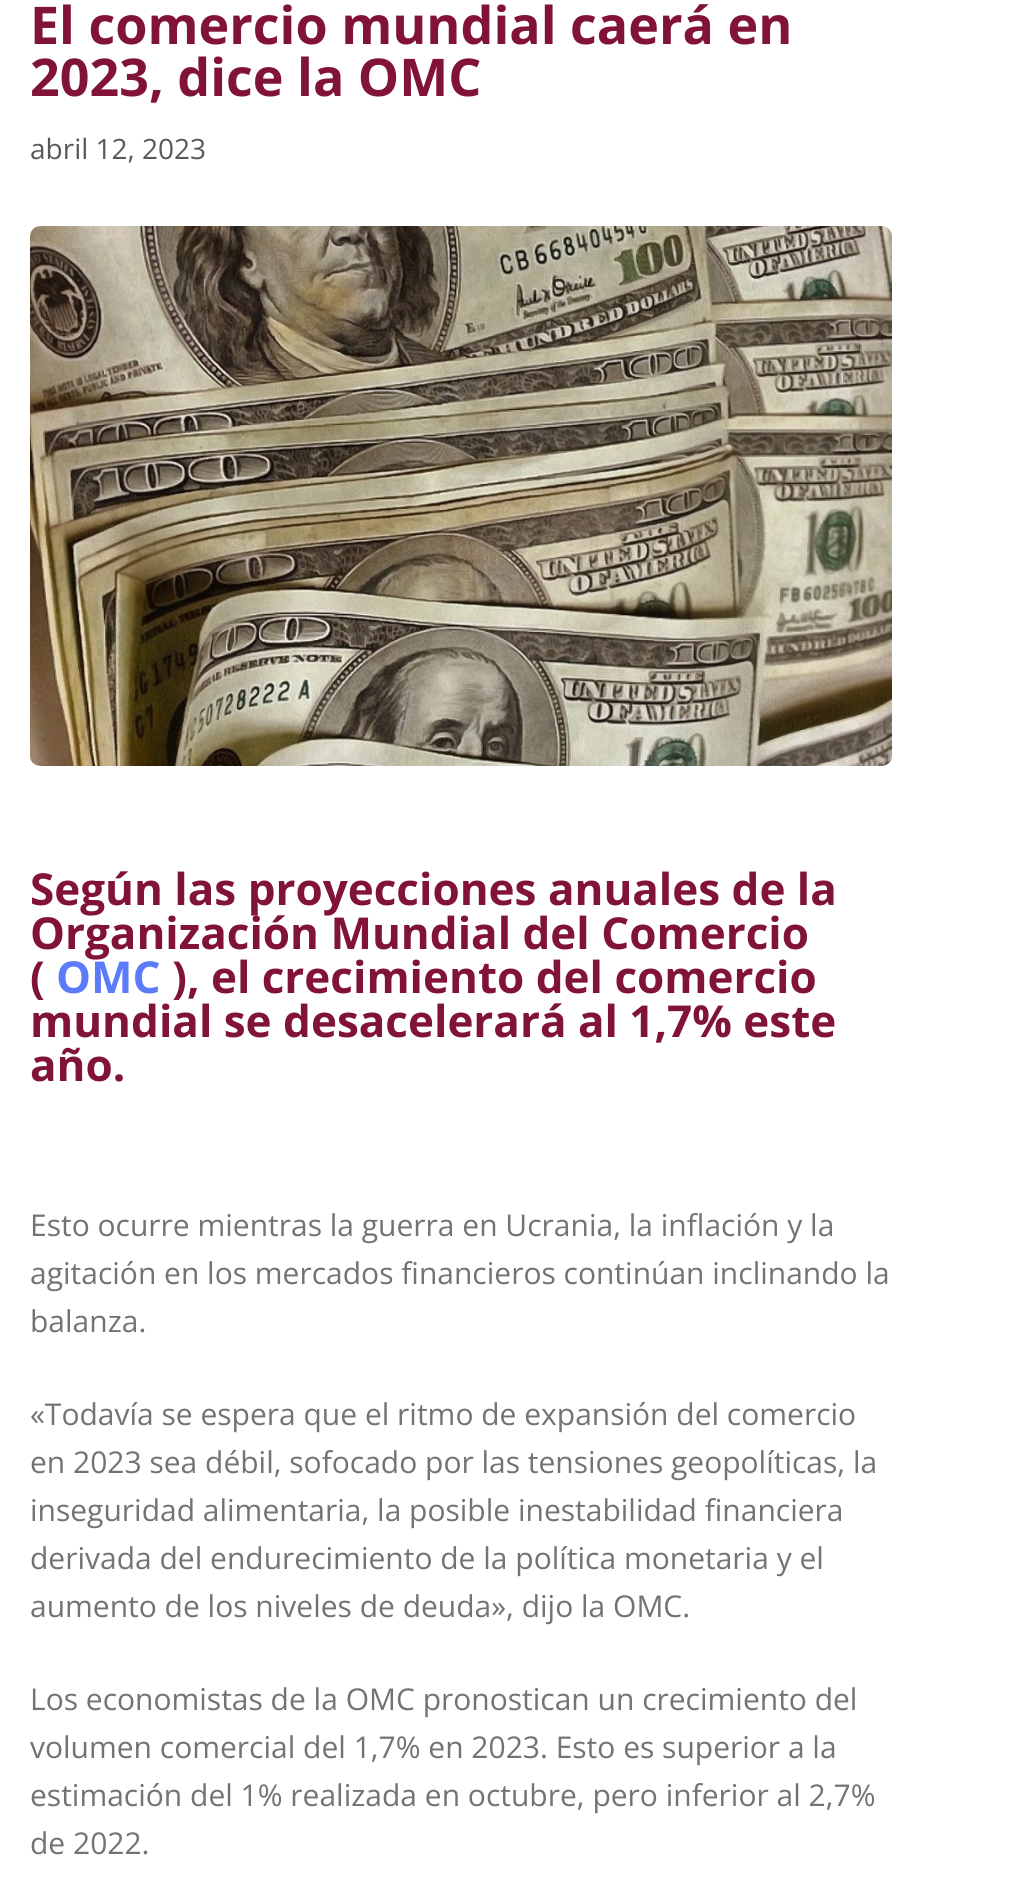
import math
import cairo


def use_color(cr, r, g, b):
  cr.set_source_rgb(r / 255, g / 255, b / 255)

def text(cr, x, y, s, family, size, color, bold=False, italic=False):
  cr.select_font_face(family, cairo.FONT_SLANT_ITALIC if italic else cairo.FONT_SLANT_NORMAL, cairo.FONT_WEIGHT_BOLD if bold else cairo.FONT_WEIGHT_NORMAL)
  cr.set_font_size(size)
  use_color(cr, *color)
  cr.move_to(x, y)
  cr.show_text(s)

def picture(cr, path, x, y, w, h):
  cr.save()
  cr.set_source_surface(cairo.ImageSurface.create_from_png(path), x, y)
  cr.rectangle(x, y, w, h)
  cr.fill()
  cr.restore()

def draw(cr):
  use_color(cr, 255, 255, 255)
  cr.paint()
  picture(cr, "img_01.png", 30, 226, 862, 540)
  text(cr, 30, 44, "El comercio mundial caerá en", "Open Sans", 52, (129, 19, 58), bold=True)
  text(cr, 30, 96, "2023, dice la OMC", "Open Sans", 52, (129, 19, 58), bold=True)
  text(cr, 30, 159, "abril 12, 2023", "Open Sans", 28, (89, 89, 89))
  text(cr, 30, 905, "Según las proyecciones anuales de la", "Open Sans", 44, (129, 19, 58), bold=True)
  text(cr, 30, 949, "Organización Mundial del Comercio", "Open Sans", 44, (129, 19, 58), bold=True)
  text(cr, 30, 993, "(", "Open Sans", 44, (129, 19, 58), bold=True)
  text(cr, 56, 993, "OMC", "Open Sans", 44, (91, 123, 251), bold=True)
  text(cr, 172, 993, "), el crecimiento del comercio", "Open Sans", 44, (129, 19, 58), bold=True)
  text(cr, 30, 1037, "mundial se desacelerará al 1,7% este", "Open Sans", 44, (129, 19, 58), bold=True)
  text(cr, 30, 1081, "año.", "Open Sans", 44, (129, 19, 58), bold=True)
  text(cr, 30, 1236, "Esto ocurre mientras la guerra en Ucrania, la inflación y la", "Open Sans", 30, (115, 115, 115))
  text(cr, 30, 1284, "agitación en los mercados financieros continúan inclinando la", "Open Sans", 30, (115, 115, 115))
  text(cr, 30, 1332, "balanza.", "Open Sans", 30, (115, 115, 115))
  text(cr, 30, 1425, "«Todavía se espera que el ritmo de expansión del comercio", "Open Sans", 30, (115, 115, 115))
  text(cr, 30, 1473, "en 2023 sea débil, sofocado por las tensiones geopolíticas, la", "Open Sans", 30, (115, 115, 115))
  text(cr, 30, 1521, "inseguridad alimentaria, la posible inestabilidad financiera", "Open Sans", 30, (115, 115, 115))
  text(cr, 30, 1569, "derivada del endurecimiento de la política monetaria y el", "Open Sans", 30, (115, 115, 115))
  text(cr, 30, 1617, "aumento de los niveles de deuda», dijo la OMC.", "Open Sans", 30, (115, 115, 115))
  text(cr, 30, 1710, "Los economistas de la OMC pronostican un crecimiento del", "Open Sans", 30, (115, 115, 115))
  text(cr, 30, 1758, "volumen comercial del 1,7% en 2023. Esto es superior a la", "Open Sans", 30, (115, 115, 115))
  text(cr, 30, 1806, "estimación del 1% realizada en octubre, pero inferior al 2,7%", "Open Sans", 30, (115, 115, 115))
  text(cr, 30, 1854, "de 2022.", "Open Sans", 30, (115, 115, 115))


surface = cairo.ImageSurface(cairo.FORMAT_RGB24, 1024, 1890)
cr = cairo.Context(surface)
options = cairo.FontOptions()
options.set_hint_metrics(cairo.HINT_METRICS_OFF)
options.set_hint_style(cairo.HINT_STYLE_NONE)
cr.set_font_options(options)
cr.set_miter_limit(4)
draw(cr)
surface.write_to_png("out.png")
